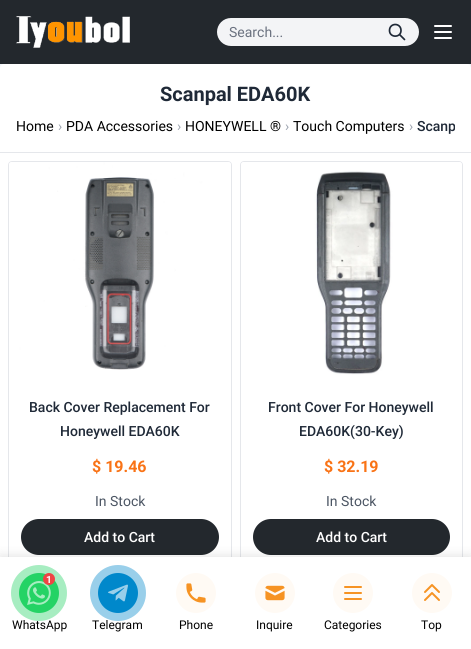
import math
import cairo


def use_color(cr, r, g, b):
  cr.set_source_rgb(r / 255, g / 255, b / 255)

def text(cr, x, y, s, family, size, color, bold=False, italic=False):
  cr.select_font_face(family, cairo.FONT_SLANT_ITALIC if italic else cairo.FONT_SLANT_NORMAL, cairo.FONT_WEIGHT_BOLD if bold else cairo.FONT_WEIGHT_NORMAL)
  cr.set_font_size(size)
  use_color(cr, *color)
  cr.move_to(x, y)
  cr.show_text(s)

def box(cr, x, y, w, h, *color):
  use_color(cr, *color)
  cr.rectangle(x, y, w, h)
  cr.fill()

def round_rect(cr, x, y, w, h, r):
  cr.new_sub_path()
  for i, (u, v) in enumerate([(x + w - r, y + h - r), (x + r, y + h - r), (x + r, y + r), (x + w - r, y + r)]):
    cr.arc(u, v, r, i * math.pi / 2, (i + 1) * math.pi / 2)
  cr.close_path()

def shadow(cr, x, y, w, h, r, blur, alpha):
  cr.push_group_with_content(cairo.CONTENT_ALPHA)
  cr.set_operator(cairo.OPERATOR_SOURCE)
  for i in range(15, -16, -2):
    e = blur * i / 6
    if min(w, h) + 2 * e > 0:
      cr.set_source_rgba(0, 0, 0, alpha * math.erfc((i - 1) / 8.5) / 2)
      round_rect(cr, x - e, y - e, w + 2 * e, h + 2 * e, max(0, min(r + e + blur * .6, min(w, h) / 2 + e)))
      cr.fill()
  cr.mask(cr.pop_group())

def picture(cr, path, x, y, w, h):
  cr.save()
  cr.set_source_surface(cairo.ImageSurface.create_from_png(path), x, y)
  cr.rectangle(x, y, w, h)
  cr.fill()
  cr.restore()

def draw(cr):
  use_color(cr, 241, 245, 249)
  cr.paint()
  box(cr, 0, 0, 471, 64, 35, 40, 45)
  picture(cr, "img_01.png", 16, 16, 114, 32)
  use_color(cr, 243, 244, 246)
  round_rect(cr, 217, 18, 202, 28, 14)
  cr.fill()
  cr.new_path()
  cr.move_to(404.5, 39.5)
  cr.line_to(399.5, 34.5)
  cr.move_to(401, 30.5)
  cr.curve_to(401, 38, 389.5, 38, 389.5, 30.5)
  cr.curve_to(389.5, 22.5, 401, 22.5, 401, 30.5)
  cr.close_path()
  use_color(cr, 31, 41, 55)
  cr.set_line_width(1.7)
  cr.set_line_cap(cairo.LINE_CAP_ROUND)
  cr.set_line_join(cairo.LINE_JOIN_ROUND)
  cr.stroke()
  cr.new_path()
  cr.move_to(435, 26)
  cr.line_to(451, 26)
  cr.move_to(435, 32)
  cr.line_to(451, 32)
  cr.move_to(435, 38)
  cr.line_to(451, 38)
  use_color(cr, 255, 255, 255)
  cr.set_line_width(2)
  cr.stroke()
  round_rect(cr, 0, 64, 471, 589, 4)
  cr.fill()
  box(cr, 0, 152, 471, 1, 229, 231, 235)
  round_rect(cr, 8.5, 161.5, 223, 406, 3.5)
  cr.set_line_width(1)
  cr.set_line_cap(cairo.LINE_CAP_BUTT)
  cr.set_line_join(cairo.LINE_JOIN_MITER)
  cr.stroke()
  picture(cr, "img_02.png", 9, 162, 222, 208)
  use_color(cr, 35, 40, 45)
  round_rect(cr, 21, 519, 198, 36, 18)
  cr.fill()
  round_rect(cr, 240.5, 161.5, 222, 406, 3.5)
  use_color(cr, 229, 231, 235)
  cr.stroke()
  picture(cr, "img_03.png", 241, 162, 221, 213)
  use_color(cr, 35, 40, 45)
  round_rect(cr, 253, 519, 197, 36, 18)
  cr.fill()
  use_color(cr, 0, 0, 0)
  shadow(cr, 0, 555, 471, 92, 0, 5, 0.1)
  box(cr, 0, 557, 471, 92, 255, 255, 255)
  use_color(cr, 37, 211, 102)
  cr.arc(39, 593, 20, 0, 2 * math.pi)
  cr.fill()
  picture(cr, "img_04.png", 27, 581, 24, 24)
  use_color(cr, 0, 136, 204)
  cr.arc(118, 593, 20, 0, 2 * math.pi)
  cr.fill()
  picture(cr, "img_05.png", 108, 584, 20, 18)
  use_color(cr, 255, 250, 244)
  cr.arc(196, 593, 20, 0, 2 * math.pi)
  cr.fill()
  picture(cr, "img_06.png", 186, 583, 20, 20)
  cr.arc(275, 593, 20, 0, 2 * math.pi)
  cr.fill()
  picture(cr, "img_07.png", 265, 585, 20, 16)
  cr.arc(353, 593, 20, 0, 2 * math.pi)
  cr.fill()
  cr.new_path()
  cr.move_to(345, 587)
  cr.line_to(361, 587)
  cr.move_to(345, 593)
  cr.line_to(361, 593)
  cr.move_to(345, 599)
  cr.line_to(361, 599)
  use_color(cr, 246, 147, 35)
  cr.set_line_width(2)
  cr.set_line_cap(cairo.LINE_CAP_ROUND)
  cr.set_line_join(cairo.LINE_JOIN_ROUND)
  cr.stroke()
  use_color(cr, 255, 250, 244)
  cr.arc(432, 593, 20, 0, 2 * math.pi)
  cr.fill()
  cr.new_path()
  cr.move_to(425, 592)
  cr.line_to(432, 585)
  cr.line_to(439, 592)
  cr.move_to(425, 600)
  cr.line_to(432, 593)
  cr.line_to(439, 600)
  use_color(cr, 246, 147, 35)
  cr.stroke()
  text(cr, 229, 37, "Search...", "Roboto", 14, (107, 114, 128))
  text(cr, 160, 101, "Scanpal EDA60K", "Roboto", 20, (31, 41, 55), bold=True)
  text(cr, 16, 131, "Home", "Roboto", 14, (0, 0, 0))
  text(cr, 58, 131, "›", "Roboto", 14, (156, 163, 175))
  text(cr, 66, 131, "PDA Accessories", "Roboto", 14, (0, 0, 0))
  text(cr, 177, 131, "›", "Roboto", 14, (156, 163, 175))
  text(cr, 185, 131, "HONEYWELL ®", "Roboto", 14, (0, 0, 0))
  text(cr, 285, 131, "›", "Roboto", 14, (156, 163, 175))
  text(cr, 293, 131, "Touch Computers", "Roboto", 14, (0, 0, 0))
  text(cr, 409, 131, "›", "Roboto", 14, (156, 163, 175))
  cr.save()
  cr.rectangle(16, 116, 439, 20)
  cr.clip()
  text(cr, 417, 131, "Scanp", "Roboto Medium", 14, (31, 41, 55))
  cr.restore()
  text(cr, 29, 412, "Back Cover Replacement For", "Roboto Medium", 14, (31, 41, 55))
  text(cr, 60, 436, "Honeywell EDA60K", "Roboto Medium", 14, (31, 41, 55))
  text(cr, 92, 472, "$ 19.46", "Roboto", 16, (249, 115, 22), bold=True)
  text(cr, 95, 506, "In Stock", "Roboto", 14, (75, 85, 99))
  text(cr, 84, 542, "Add to Cart", "Roboto Medium", 14, (255, 255, 255))
  text(cr, 268, 412, "Front Cover For Honeywell", "Roboto Medium", 14, (31, 41, 55))
  text(cr, 299, 436, "EDA60K(30-Key)", "Roboto Medium", 14, (31, 41, 55))
  text(cr, 324, 472, "$ 32.19", "Roboto", 16, (249, 115, 22), bold=True)
  text(cr, 326, 506, "In Stock", "Roboto", 14, (75, 85, 99))
  text(cr, 316, 542, "Add to Cart", "Roboto Medium", 14, (255, 255, 255))
  text(cr, 12, 629, "WhatsApp", "Roboto", 12, (0, 0, 0))
  cr.set_source_rgba(0.145, 0.827, 0.4, 0.4)
  cr.new_path()
  cr.arc(39, 593, 28, 0, 2 * math.pi)
  cr.fill()
  use_color(cr, 239, 68, 68)
  cr.arc(49, 579, 6, 0, 2 * math.pi)
  cr.fill()
  text(cr, 46, 583, "1", "Roboto", 10, (255, 255, 255), bold=True)
  text(cr, 92, 629, "Telegram", "Roboto", 12, (0, 0, 0))
  cr.set_source_rgba(0, 0.533, 0.8, 0.4)
  cr.new_path()
  cr.arc(118, 593, 28, 0, 2 * math.pi)
  cr.fill()
  text(cr, 179, 629, "Phone", "Roboto", 12, (0, 0, 0))
  text(cr, 256, 629, "Inquire", "Roboto", 12, (0, 0, 0))
  text(cr, 324, 629, "Categories", "Roboto", 12, (0, 0, 0))
  text(cr, 421, 629, "Top", "Roboto", 12, (0, 0, 0))


surface = cairo.ImageSurface(cairo.FORMAT_RGB24, 471, 649)
cr = cairo.Context(surface)
options = cairo.FontOptions()
options.set_hint_metrics(cairo.HINT_METRICS_OFF)
options.set_hint_style(cairo.HINT_STYLE_NONE)
cr.set_font_options(options)
cr.set_miter_limit(4)
draw(cr)
surface.write_to_png("out.png")
